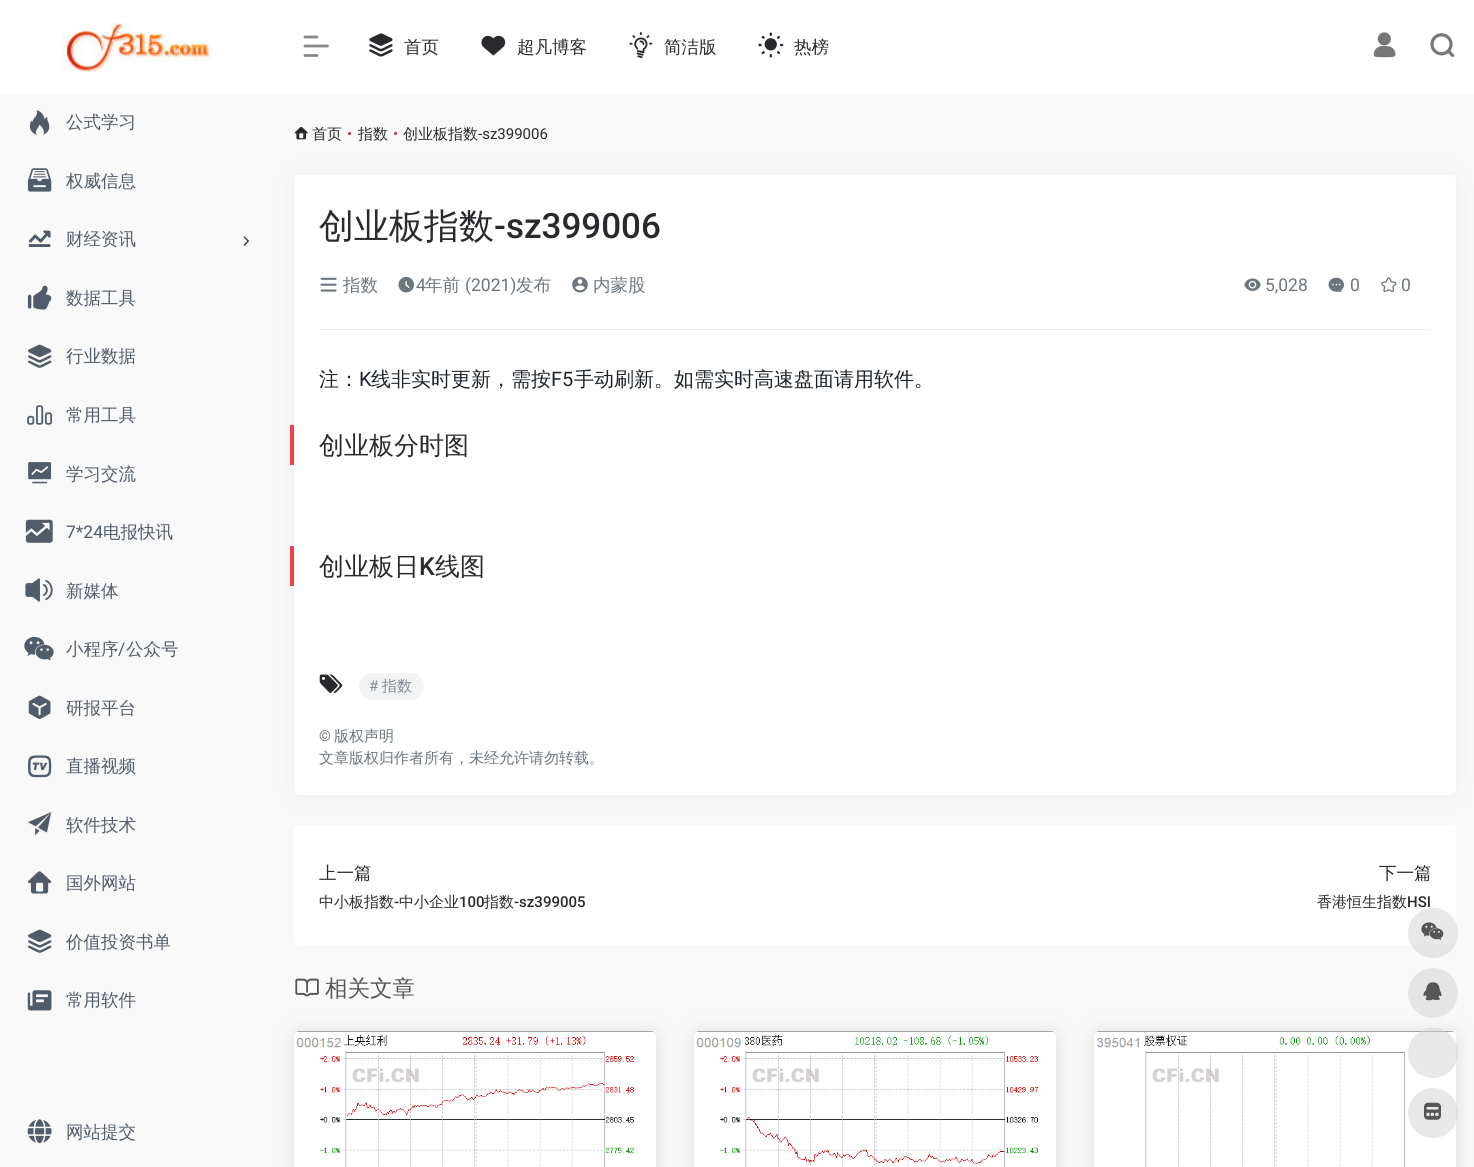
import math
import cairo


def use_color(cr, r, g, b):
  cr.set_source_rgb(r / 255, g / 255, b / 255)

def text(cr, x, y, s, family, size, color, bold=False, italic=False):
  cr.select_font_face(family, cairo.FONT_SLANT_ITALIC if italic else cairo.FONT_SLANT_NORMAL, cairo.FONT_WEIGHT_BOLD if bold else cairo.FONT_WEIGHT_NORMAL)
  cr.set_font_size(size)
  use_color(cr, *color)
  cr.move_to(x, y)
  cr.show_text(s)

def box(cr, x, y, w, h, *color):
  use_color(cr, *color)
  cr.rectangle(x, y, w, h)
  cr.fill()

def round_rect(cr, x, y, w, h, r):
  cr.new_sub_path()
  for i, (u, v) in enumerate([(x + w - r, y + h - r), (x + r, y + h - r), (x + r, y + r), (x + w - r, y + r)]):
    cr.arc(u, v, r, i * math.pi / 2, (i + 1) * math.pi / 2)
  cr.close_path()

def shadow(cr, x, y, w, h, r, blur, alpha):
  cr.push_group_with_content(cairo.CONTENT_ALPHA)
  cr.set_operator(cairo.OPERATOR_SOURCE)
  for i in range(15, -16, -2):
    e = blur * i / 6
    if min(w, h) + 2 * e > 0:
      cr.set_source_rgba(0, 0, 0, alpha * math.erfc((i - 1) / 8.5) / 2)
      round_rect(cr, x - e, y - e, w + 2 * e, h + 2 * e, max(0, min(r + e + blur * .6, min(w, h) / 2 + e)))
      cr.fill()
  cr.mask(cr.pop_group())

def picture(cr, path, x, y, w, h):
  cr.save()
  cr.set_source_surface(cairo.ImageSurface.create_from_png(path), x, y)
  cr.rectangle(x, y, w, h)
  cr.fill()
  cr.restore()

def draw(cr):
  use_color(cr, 249, 249, 249)
  cr.paint()
  box(cr, 0, 0, 1474, 93, 255, 255, 255)
  picture(cr, "img_01.png", 62, 22, 155, 51)
  picture(cr, "img_02.png", 29, 110, 21, 25)
  picture(cr, "img_03.png", 27, 168, 25, 24)
  picture(cr, "img_04.png", 28, 230, 23, 17)
  picture(cr, "img_05.png", 243, 236, 6, 10)
  picture(cr, "img_06.png", 27, 285, 25, 25)
  picture(cr, "img_07.png", 28, 344, 24, 24)
  picture(cr, "img_08.png", 27, 405, 25, 20)
  picture(cr, "img_09.png", 28, 462, 24, 22)
  picture(cr, "img_10.png", 25, 519, 28, 24)
  picture(cr, "img_11.png", 25, 578, 28, 24)
  picture(cr, "img_12.png", 24, 636, 30, 25)
  picture(cr, "img_13.png", 28, 695, 23, 25)
  picture(cr, "img_14.png", 28, 755, 24, 23)
  picture(cr, "img_15.png", 28, 812, 24, 24)
  picture(cr, "img_16.png", 28, 871, 24, 23)
  picture(cr, "img_07.png", 28, 929, 24, 24)
  picture(cr, "img_17.png", 27, 990, 25, 21)
  picture(cr, "img_18.png", 27, 1119, 25, 25)
  cr.new_path()
  cr.move_to(305, 37)
  cr.line_to(317, 37)
  cr.move_to(305, 46)
  cr.line_to(327.5, 46)
  cr.move_to(305, 55.5)
  cr.line_to(317, 55.5)
  use_color(cr, 136, 136, 136)
  cr.set_line_width(2.8)
  cr.set_line_cap(cairo.LINE_CAP_ROUND)
  cr.set_line_join(cairo.LINE_JOIN_ROUND)
  cr.stroke()
  picture(cr, "img_19.png", 369, 33, 24, 24)
  picture(cr, "img_20.png", 481, 35, 25, 21)
  picture(cr, "img_21.png", 629, 32, 24, 26)
  picture(cr, "img_22.png", 758, 32, 26, 26)
  picture(cr, "img_23.png", 1373, 32, 23, 26)
  picture(cr, "img_24.png", 1430, 33, 25, 25)
  picture(cr, "img_25.png", 294, 126, 14, 14)
  use_color(cr, 255, 255, 255)
  round_rect(cr, 294, 825, 1162, 120, 5)
  cr.fill()
  use_color(cr, 158, 158, 158)
  shadow(cr, 300, 181, 1150, 608, 0, 12.5, 0.2)
  use_color(cr, 255, 255, 255)
  round_rect(cr, 294, 175, 1162, 620, 5)
  cr.fill()
  box(cr, 319, 329, 1112, 1, 236, 236, 236)
  picture(cr, "img_26.png", 320, 277, 17, 15)
  picture(cr, "img_27.png", 398, 276, 16, 17)
  picture(cr, "img_28.png", 572, 276, 16, 17)
  picture(cr, "img_29.png", 1244, 278, 17, 13)
  picture(cr, "img_30.png", 1328, 277, 16, 15)
  picture(cr, "img_31.png", 1381, 277, 16, 16)
  box(cr, 290, 425, 4, 40, 241, 64, 75)
  box(cr, 290, 546, 4, 40, 241, 64, 75)
  picture(cr, "img_32.png", 319, 674, 24, 19)
  use_color(cr, 242, 243, 244)
  round_rect(cr, 359, 673, 65, 27, 13.5)
  cr.fill()
  picture(cr, "img_33.png", 295, 978, 24, 19)
  use_color(cr, 20, 20, 20)
  shadow(cr, 300, 1038, 350, 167, 0, 12.5, 0.2)
  cr.set_source_rgba(0.471, 0.471, 0.471, 0.1)
  round_rect(cr, 294, 1031, 362, 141, 5)
  cr.fill()
  picture(cr, "img_34.png", 294, 1031, 362, 136)
  use_color(cr, 20, 20, 20)
  shadow(cr, 700, 1038, 350, 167, 0, 12.5, 0.2)
  cr.set_source_rgba(0.471, 0.471, 0.471, 0.1)
  round_rect(cr, 694, 1031, 362, 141, 5)
  cr.fill()
  picture(cr, "img_35.png", 694, 1031, 362, 136)
  use_color(cr, 20, 20, 20)
  shadow(cr, 1100, 1038, 350, 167, 0, 12.5, 0.2)
  cr.set_source_rgba(0.471, 0.471, 0.471, 0.1)
  round_rect(cr, 1094, 1031, 362, 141, 5)
  cr.fill()
  picture(cr, "img_36.png", 1094, 1031, 362, 136)
  cr.set_source_rgba(0.824, 0.824, 0.824, 0.5)
  cr.arc(1433, 933, 25, 0, 2 * math.pi)
  cr.fill()
  picture(cr, "img_37.png", 1421, 922, 23, 18)
  use_color(cr, 229, 229, 229)
  cr.arc(1433, 993, 25, 0, 2 * math.pi)
  cr.fill()
  picture(cr, "img_38.png", 1423, 982, 19, 19)
  cr.set_source_rgba(0.824, 0.824, 0.824, 0.5)
  cr.arc(1433, 1053, 25, 0, 2 * math.pi)
  cr.fill()
  cr.arc(1433, 1113, 25, 0, 2 * math.pi)
  cr.fill()
  picture(cr, "img_39.png", 1424, 1102, 17, 18)
  text(cr, 66, 128, "公式学习", "WenQuanYi Zen Hei Medium", 17.5, (81, 92, 107))
  text(cr, 66, 187, "权威信息", "WenQuanYi Zen Hei Medium", 17.5, (81, 92, 107))
  text(cr, 66, 245, "财经资讯", "WenQuanYi Zen Hei Medium", 17.5, (81, 92, 107))
  text(cr, 66, 304, "数据工具", "WenQuanYi Zen Hei Medium", 17.5, (81, 92, 107))
  text(cr, 66, 362, "行业数据", "WenQuanYi Zen Hei Medium", 17.5, (81, 92, 107))
  text(cr, 66, 421, "常用工具", "WenQuanYi Zen Hei Medium", 17.5, (81, 92, 107))
  text(cr, 66, 480, "学习交流", "WenQuanYi Zen Hei Medium", 17.5, (81, 92, 107))
  text(cr, 66, 538, "7*24", "Roboto", 17.5, (81, 92, 107))
  text(cr, 103, 538, "电报快讯", "WenQuanYi Zen Hei Medium", 17.5, (81, 92, 107))
  text(cr, 66, 597, "新媒体", "WenQuanYi Zen Hei Medium", 17.5, (81, 92, 107))
  text(cr, 66, 655, "小程序", "WenQuanYi Zen Hei Medium", 17.5, (81, 92, 107))
  text(cr, 118, 655, "/", "Roboto", 17.5, (81, 92, 107))
  text(cr, 126, 655, "公众号", "WenQuanYi Zen Hei Medium", 17.5, (81, 92, 107))
  text(cr, 66, 714, "研报平台", "WenQuanYi Zen Hei Medium", 17.5, (81, 92, 107))
  text(cr, 66, 772, "直播视频", "WenQuanYi Zen Hei Medium", 17.5, (81, 92, 107))
  text(cr, 66, 831, "软件技术", "WenQuanYi Zen Hei Medium", 17.5, (81, 92, 107))
  text(cr, 66, 889, "国外网站", "WenQuanYi Zen Hei Medium", 17.5, (81, 92, 107))
  text(cr, 66, 948, "价值投资书单", "WenQuanYi Zen Hei Medium", 17.5, (81, 92, 107))
  text(cr, 66, 1006, "常用软件", "WenQuanYi Zen Hei Medium", 17.5, (81, 92, 107))
  text(cr, 66, 1138, "网站提交", "WenQuanYi Zen Hei Medium", 17.5, (81, 92, 107))
  text(cr, 404, 53, "首页", "WenQuanYi Zen Hei Medium", 17.5, (40, 42, 45))
  text(cr, 517, 53, "超凡博客", "WenQuanYi Zen Hei Medium", 17.5, (40, 42, 45))
  text(cr, 664, 53, "简洁版", "WenQuanYi Zen Hei Medium", 17.5, (40, 42, 45))
  text(cr, 794, 53, "热榜", "WenQuanYi Zen Hei Medium", 17.5, (40, 42, 45))
  text(cr, 312, 139, "首页", "WenQuanYi Zen Hei Medium", 15, (40, 42, 45))
  text(cr, 347, 139, "•", "Roboto", 15, (220, 53, 69))
  text(cr, 358, 139, "指数", "WenQuanYi Zen Hei Medium", 15, (40, 42, 45))
  text(cr, 393, 139, "•", "Roboto", 15, (220, 53, 69))
  text(cr, 403, 139, "创业板指数", "WenQuanYi Zen Hei Medium", 15, (40, 42, 45))
  text(cr, 478, 139, "-sz399006", "Roboto", 15, (40, 42, 45))
  text(cr, 319, 238, "创业板指数", "WenQuanYi Zen Hei Medium", 35, (40, 42, 45))
  text(cr, 494, 238, "-sz399006", "Roboto Medium", 35, (40, 42, 45))
  text(cr, 343, 291, "指数", "WenQuanYi Zen Hei Medium", 17.5, (108, 117, 125))
  text(cr, 416, 291, "4", "Roboto", 17.5, (108, 117, 125))
  text(cr, 425, 291, "年前", "WenQuanYi Zen Hei Medium", 17.5, (108, 117, 125))
  text(cr, 465, 291, "(2021)", "Roboto", 17.5, (108, 117, 125))
  text(cr, 516, 291, "发布", "WenQuanYi Zen Hei Medium", 17.5, (108, 117, 125))
  text(cr, 593, 291, "内蒙股", "WenQuanYi Zen Hei Medium", 17.5, (108, 117, 125))
  text(cr, 1265, 291, "5,028", "Roboto", 17.5, (108, 117, 125))
  text(cr, 1350, 291, "0", "Roboto", 17.5, (108, 117, 125))
  text(cr, 1401, 291, "0", "Roboto", 17.5, (108, 117, 125))
  text(cr, 319, 386, "注：", "WenQuanYi Zen Hei Medium", 20, (29, 35, 43))
  text(cr, 359, 386, "K", "Roboto", 20, (29, 35, 43))
  text(cr, 371, 386, "线非实时更新，需按", "WenQuanYi Zen Hei Medium", 20, (29, 35, 43))
  text(cr, 551, 386, "F5", "Roboto", 20, (29, 35, 43))
  text(cr, 574, 386, "手动刷新。如需实时高速盘面请用软件。", "WenQuanYi Zen Hei Medium", 20, (29, 35, 43))
  text(cr, 319, 454, "创业板分时图", "WenQuanYi Zen Hei Medium", 25, (40, 42, 45))
  text(cr, 319, 575, "创业板日", "WenQuanYi Zen Hei Medium", 25, (40, 42, 45))
  text(cr, 419, 575, "K", "Roboto Medium", 25, (40, 42, 45))
  text(cr, 435, 575, "线图", "WenQuanYi Zen Hei Medium", 25, (40, 42, 45))
  text(cr, 369, 691, "#", "Roboto", 15, (129, 139, 149))
  text(cr, 382, 691, "指数", "WenQuanYi Zen Hei Medium", 15, (129, 139, 149))
  text(cr, 319, 741, "©", "Roboto", 15, (108, 117, 125))
  text(cr, 334, 741, "版权声明", "WenQuanYi Zen Hei Medium", 15, (108, 117, 125))
  text(cr, 319, 763, "文章版权归作者所有，未经允许请勿转载。", "WenQuanYi Zen Hei Medium", 15, (108, 117, 125))
  text(cr, 319, 879, "上一篇", "WenQuanYi Zen Hei Medium", 17.5, (40, 42, 45))
  text(cr, 319, 907, "中小板指数", "WenQuanYi Zen Hei Medium", 15, (40, 42, 45))
  text(cr, 394, 907, "-", "Roboto Medium", 15, (40, 42, 45))
  text(cr, 399, 907, "中小企业", "WenQuanYi Zen Hei Medium", 15, (40, 42, 45))
  text(cr, 459, 907, "100", "Roboto Medium", 15, (40, 42, 45))
  text(cr, 484, 907, "指数", "WenQuanYi Zen Hei Medium", 15, (40, 42, 45))
  text(cr, 514, 907, "-sz399005", "Roboto Medium", 15, (40, 42, 45))
  text(cr, 1379, 879, "下一篇", "WenQuanYi Zen Hei Medium", 17.5, (40, 42, 45))
  text(cr, 1317, 907, "香港恒生指数", "WenQuanYi Zen Hei Medium", 15, (40, 42, 45))
  text(cr, 1407, 907, "HSI", "Roboto Medium", 15, (40, 42, 45))
  text(cr, 325, 996, "相关文章", "WenQuanYi Zen Hei Medium", 22.5, (85, 85, 85))


surface = cairo.ImageSurface(cairo.FORMAT_RGB24, 1474, 1167)
cr = cairo.Context(surface)
options = cairo.FontOptions()
options.set_hint_metrics(cairo.HINT_METRICS_OFF)
options.set_hint_style(cairo.HINT_STYLE_NONE)
cr.set_font_options(options)
cr.set_miter_limit(4)
draw(cr)
surface.write_to_png("out.png")
